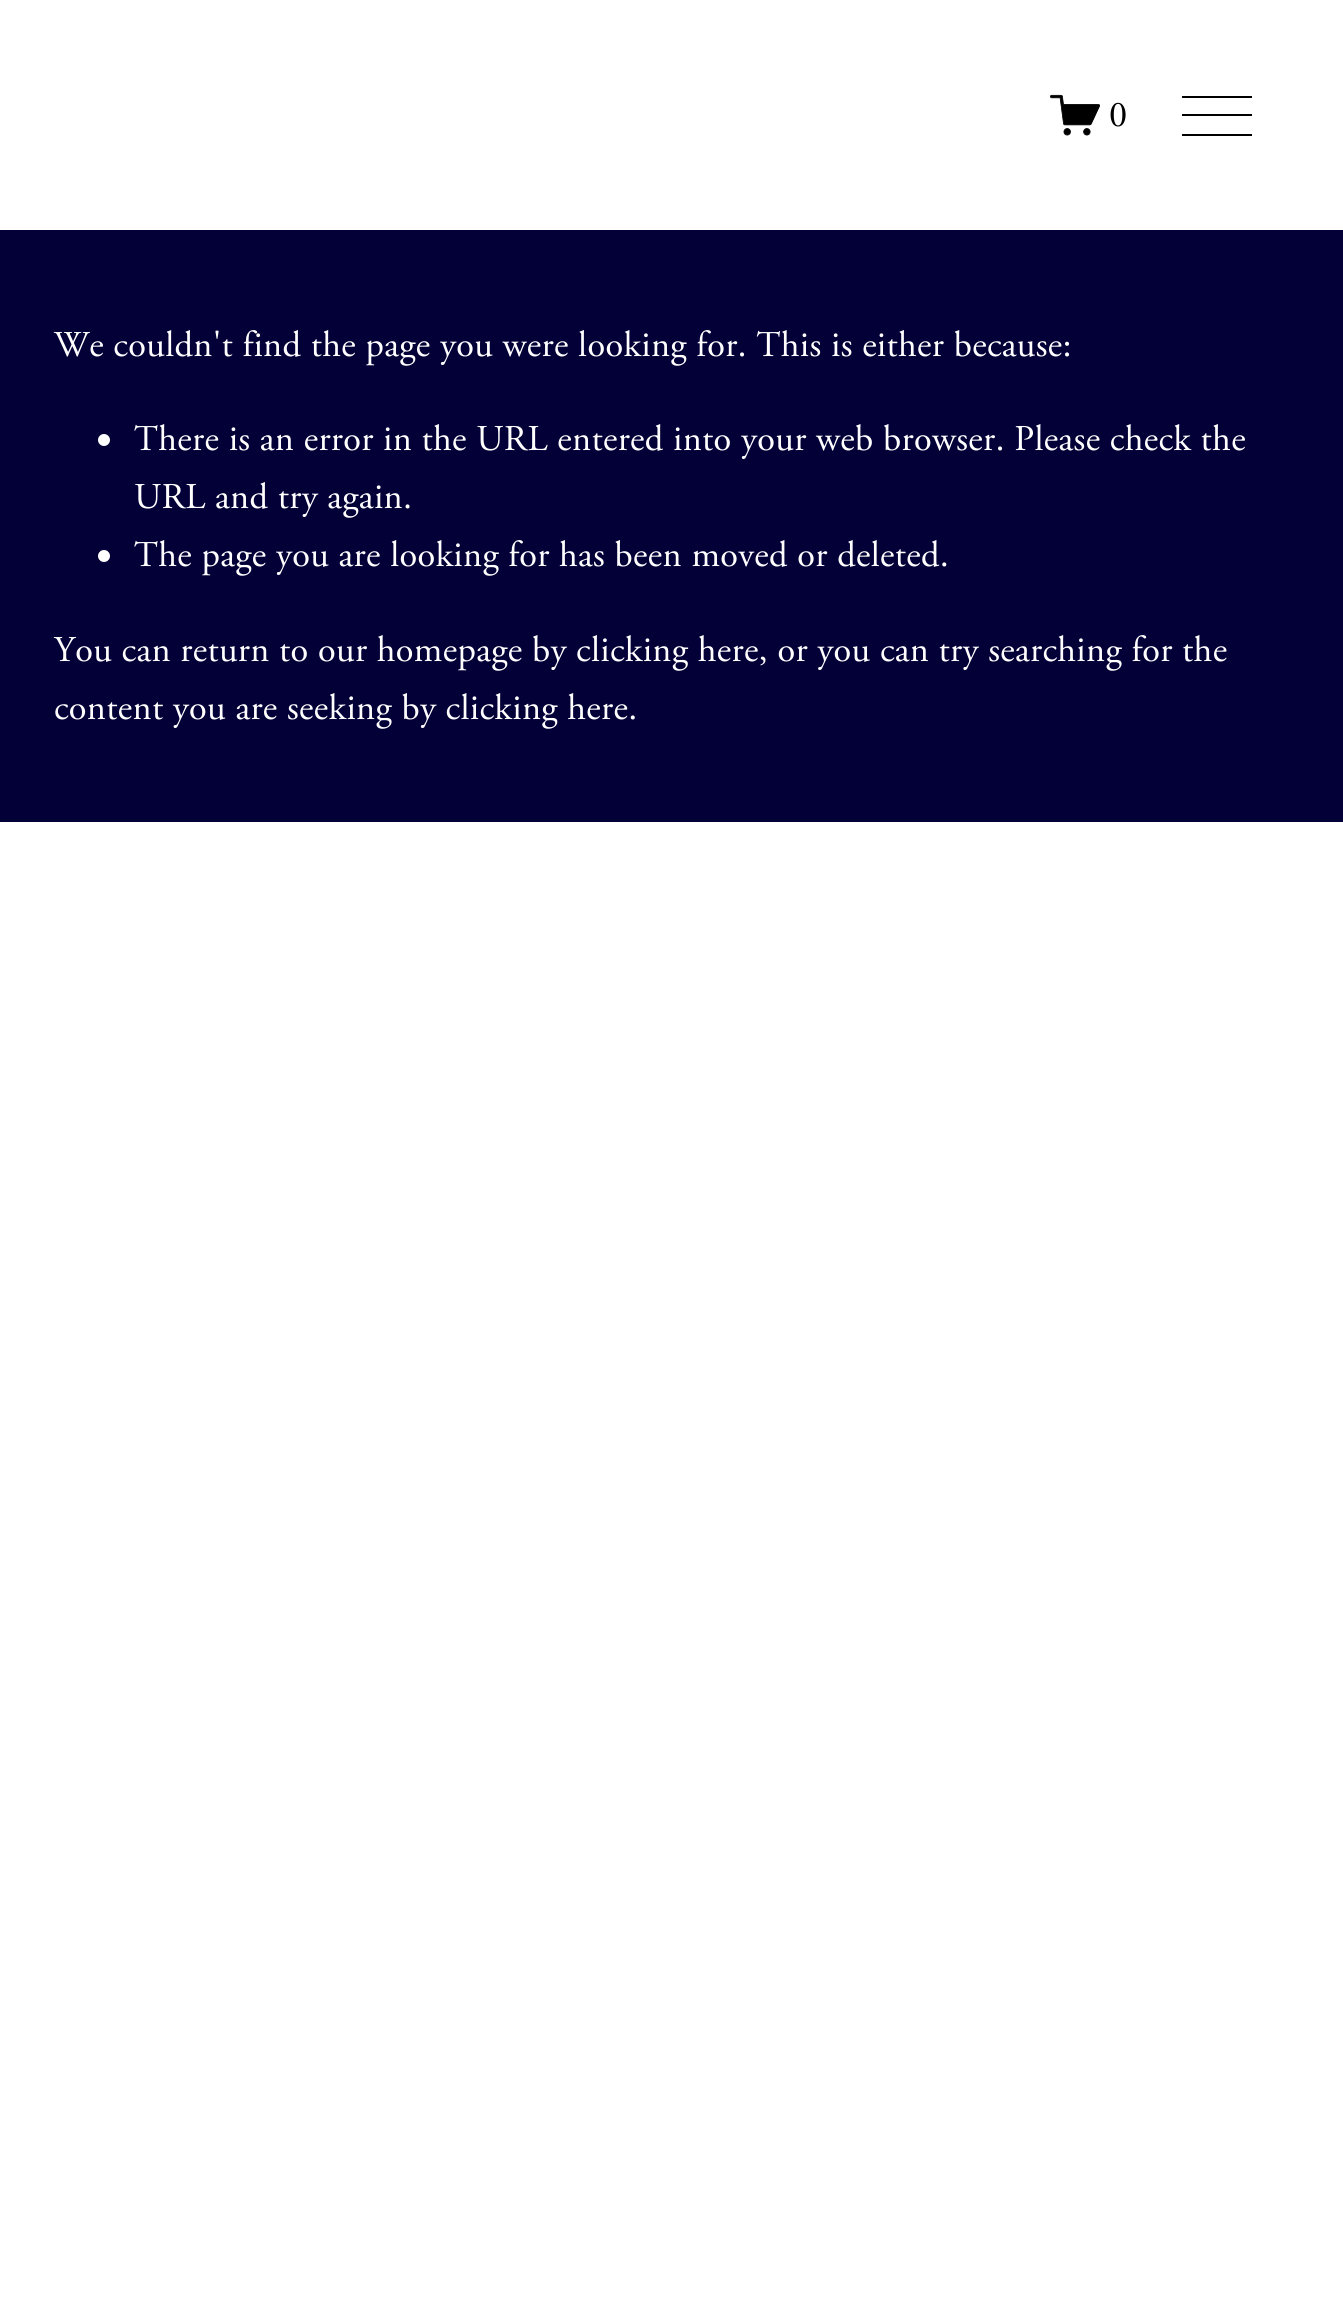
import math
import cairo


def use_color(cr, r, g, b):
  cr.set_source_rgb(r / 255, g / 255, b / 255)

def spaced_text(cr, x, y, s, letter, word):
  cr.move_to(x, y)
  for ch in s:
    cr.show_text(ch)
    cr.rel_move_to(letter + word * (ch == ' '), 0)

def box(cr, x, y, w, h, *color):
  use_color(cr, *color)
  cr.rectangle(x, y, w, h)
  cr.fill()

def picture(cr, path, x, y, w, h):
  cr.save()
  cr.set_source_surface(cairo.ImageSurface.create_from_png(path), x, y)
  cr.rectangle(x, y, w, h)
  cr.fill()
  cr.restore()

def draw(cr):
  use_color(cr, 3, 0, 55)
  cr.paint()
  box(cr, 0, 0, 1343, 230, 255, 255, 255)
  picture(cr, "img_01.png", 1050, 94, 50, 42)
  box(cr, 1182, 96, 70, 2, 0, 0, 0)
  box(cr, 1182, 114, 70, 2, 0, 0, 0)
  box(cr, 1182, 134, 70, 2, 0, 0, 0)
  use_color(cr, 255, 255, 255)
  cr.arc(104, 440, 6, 0, 2 * math.pi)
  cr.fill()
  cr.arc(104, 556, 6, 0, 2 * math.pi)
  cr.fill()
  box(cr, 0, 822, 1343, 1486, 255, 255, 255)
  cr.select_font_face("Adobe Garamond")
  cr.set_font_size(36.3)
  use_color(cr, 0, 0, 0)
  spaced_text(cr, 1109, 126, "0", 0.35, 0)
  use_color(cr, 255, 255, 255)
  spaced_text(cr, 54, 356, "We couldn't find the page you were looking for. This is either because:", 0.35, 0)
  spaced_text(cr, 134, 450, "There is an error in the URL entered into your web browser. Please check the", 0.35, 0)
  spaced_text(cr, 134, 508, "URL and try again.", 0.35, 0)
  spaced_text(cr, 134, 566, "The page you are looking for has been moved or deleted.", 0.35, 0)
  spaced_text(cr, 54, 661, "You can return to our homepage by clicking here, or you can try searching for the", 0.35, 0)
  spaced_text(cr, 54, 719, "content you are seeking by clicking here.", 0.35, 0)


surface = cairo.ImageSurface(cairo.FORMAT_RGB24, 1343, 2308)
cr = cairo.Context(surface)
options = cairo.FontOptions()
options.set_hint_metrics(cairo.HINT_METRICS_OFF)
options.set_hint_style(cairo.HINT_STYLE_NONE)
cr.set_font_options(options)
cr.set_miter_limit(4)
draw(cr)
surface.write_to_png("out.png")
